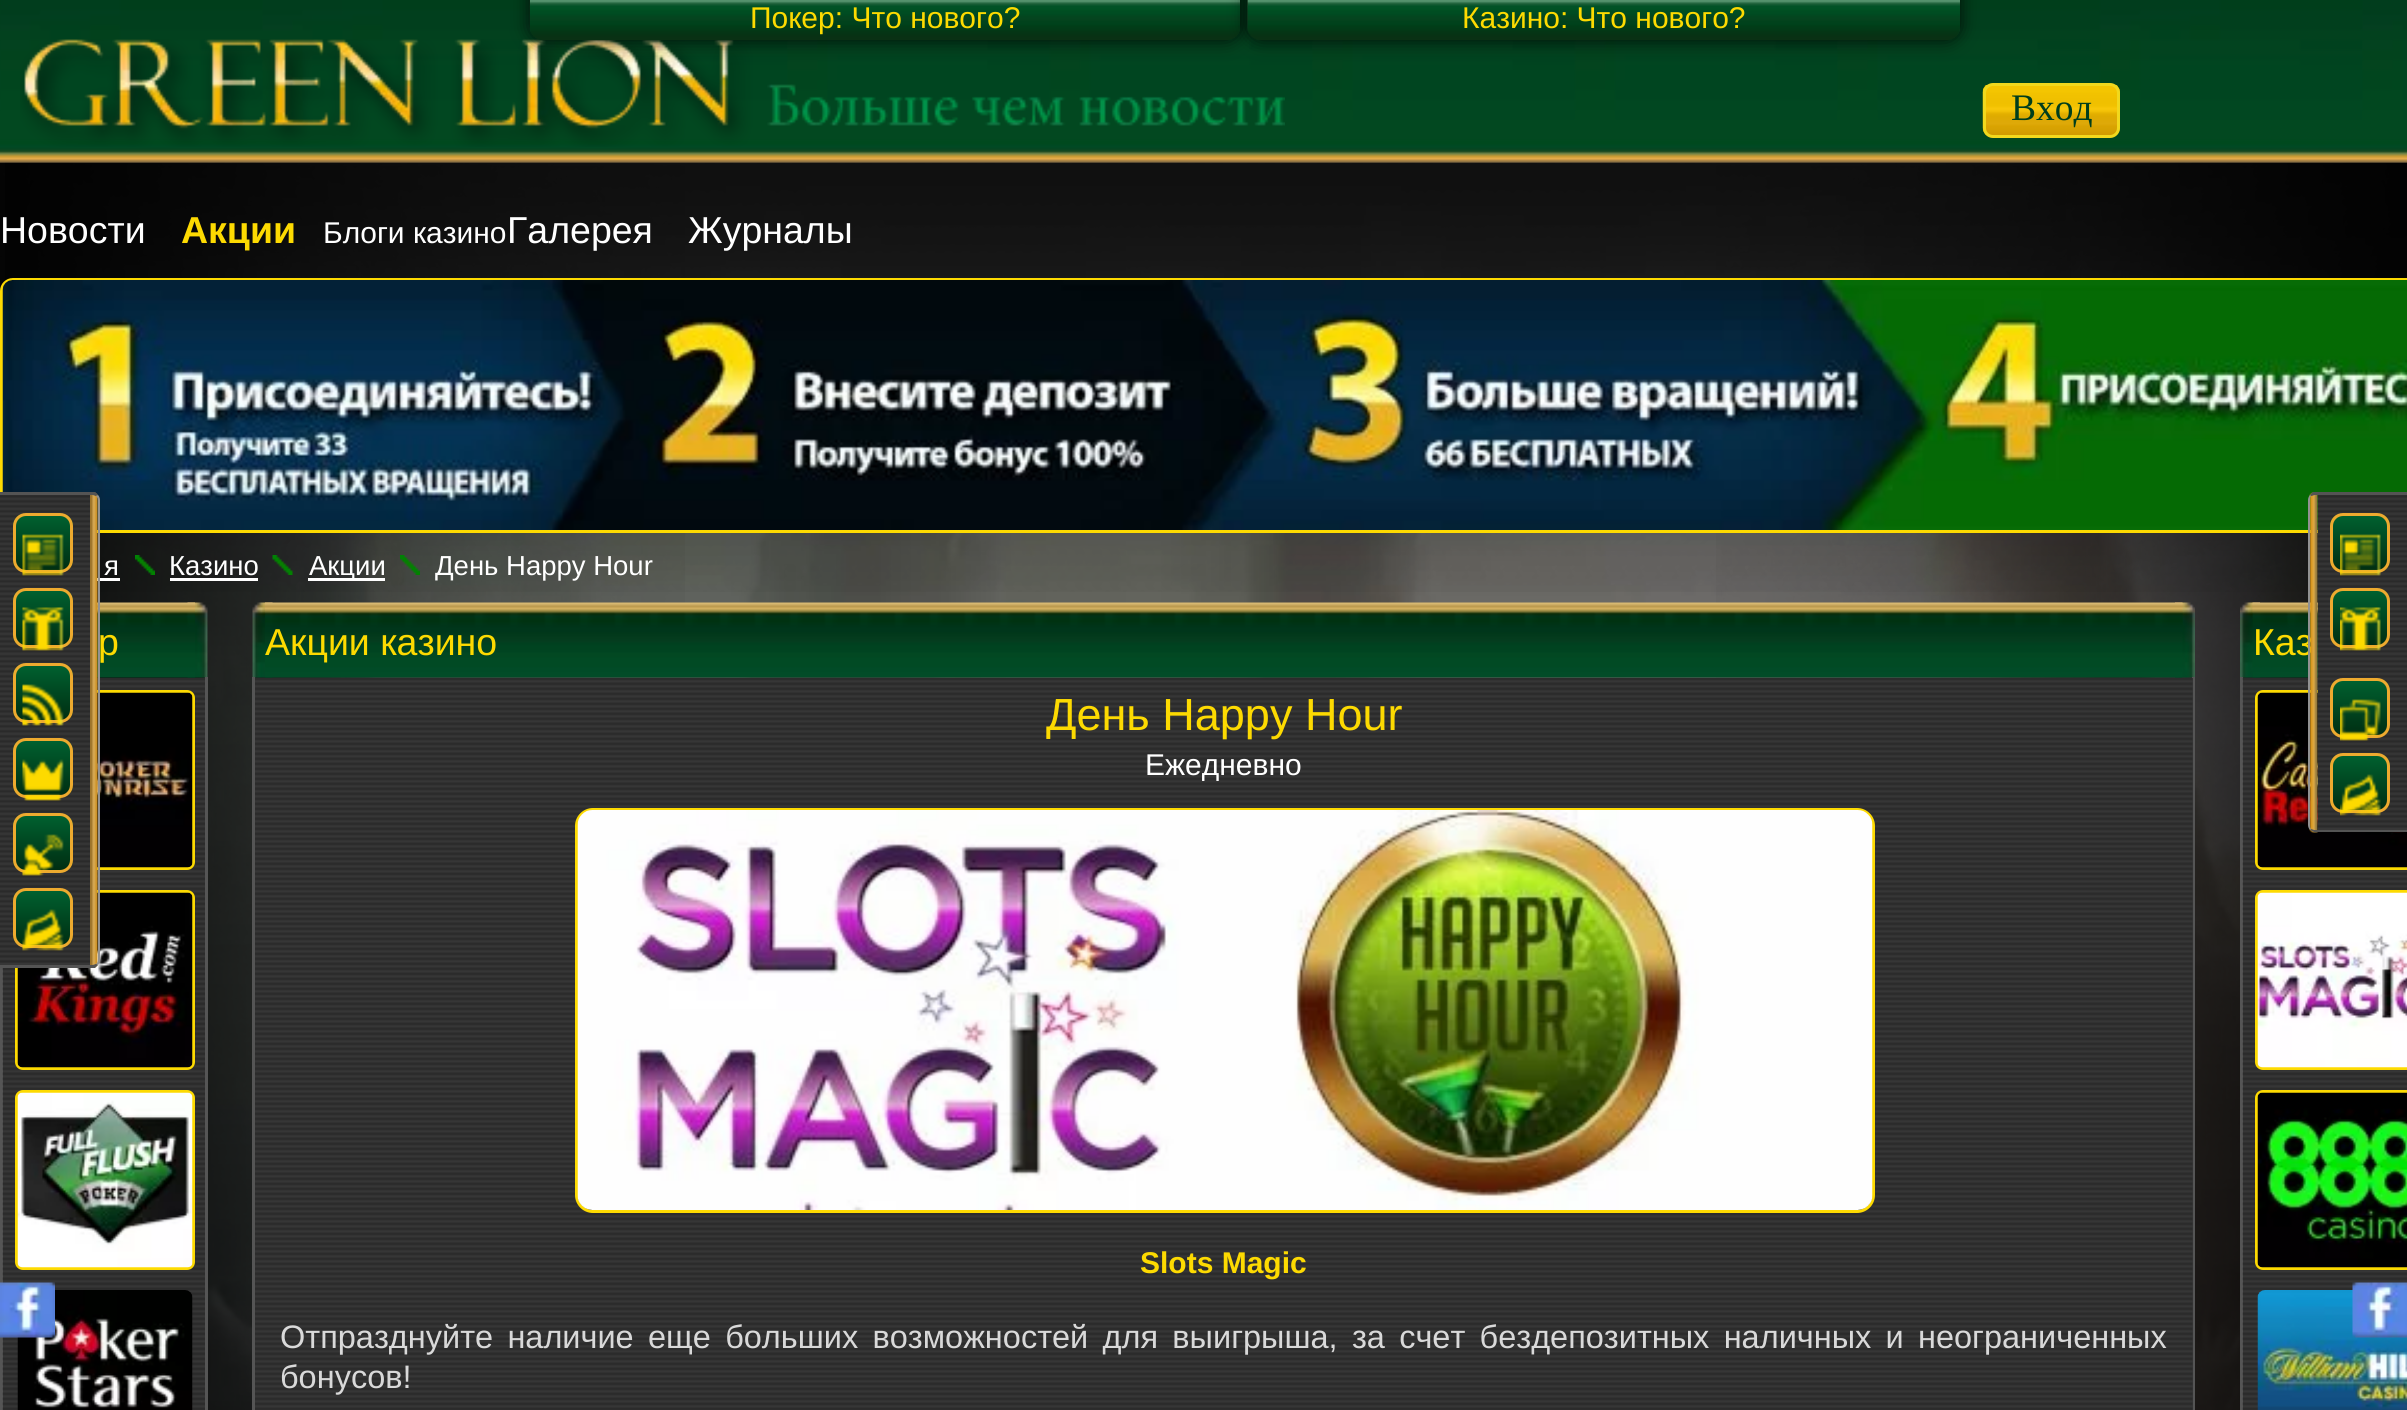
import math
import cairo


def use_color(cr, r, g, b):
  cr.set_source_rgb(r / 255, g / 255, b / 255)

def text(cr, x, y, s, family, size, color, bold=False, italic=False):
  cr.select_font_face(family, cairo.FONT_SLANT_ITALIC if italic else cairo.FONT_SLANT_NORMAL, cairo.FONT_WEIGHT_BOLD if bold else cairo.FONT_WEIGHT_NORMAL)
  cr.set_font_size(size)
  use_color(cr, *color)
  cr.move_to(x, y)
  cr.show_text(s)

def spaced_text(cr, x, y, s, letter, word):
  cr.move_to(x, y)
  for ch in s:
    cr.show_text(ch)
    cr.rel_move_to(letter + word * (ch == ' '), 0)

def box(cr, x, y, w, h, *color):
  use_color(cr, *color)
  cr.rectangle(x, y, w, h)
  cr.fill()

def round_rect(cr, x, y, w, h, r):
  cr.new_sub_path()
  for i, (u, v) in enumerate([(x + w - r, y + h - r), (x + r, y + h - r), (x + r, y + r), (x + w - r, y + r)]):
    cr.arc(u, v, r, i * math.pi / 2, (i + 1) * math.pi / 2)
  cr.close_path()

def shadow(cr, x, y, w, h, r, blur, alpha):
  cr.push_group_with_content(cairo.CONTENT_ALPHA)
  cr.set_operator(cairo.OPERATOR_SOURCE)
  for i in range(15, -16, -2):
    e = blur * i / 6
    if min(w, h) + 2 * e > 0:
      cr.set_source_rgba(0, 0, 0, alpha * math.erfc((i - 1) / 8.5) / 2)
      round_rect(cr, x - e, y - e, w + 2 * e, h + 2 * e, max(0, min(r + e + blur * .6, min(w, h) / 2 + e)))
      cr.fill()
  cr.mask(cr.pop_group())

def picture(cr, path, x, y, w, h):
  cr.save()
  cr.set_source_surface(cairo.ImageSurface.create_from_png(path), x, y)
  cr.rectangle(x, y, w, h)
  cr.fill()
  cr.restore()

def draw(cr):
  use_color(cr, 255, 255, 255)
  cr.paint()
  picture(cr, "img_10.png", 0, 162, 2407, 1248)
  picture(cr, "img_11.png", 0, 162, 685, 1248)
  picture(cr, "img_12.png", 1716, 162, 691, 1248)
  picture(cr, "img_13.png", 5, 162, 2402, 430)
  picture(cr, "img_01.png", 0, 0, 2407, 163)
  picture(cr, "img_08.png", 20, 39, 1265, 108)
  cr.save()
  cr.set_fill_rule(cairo.FILL_RULE_EVEN_ODD)
  cr.new_path()
  cr.move_to(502, 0)
  cr.line_to(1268, 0)
  cr.line_to(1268, 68)
  cr.line_to(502, 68)
  cr.close_path()
  cr.move_to(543, -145)
  cr.line_to(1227, -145)
  cr.curve_to(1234, -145, 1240, -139, 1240, -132)
  cr.line_to(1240, 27)
  cr.curve_to(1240, 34, 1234, 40, 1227, 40)
  cr.line_to(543, 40)
  cr.curve_to(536, 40, 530, 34, 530, 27)
  cr.line_to(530, -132)
  cr.curve_to(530, -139, 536, -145, 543, -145)
  cr.close_path()
  cr.clip()
  use_color(cr, 0, 0, 0)
  shadow(cr, 530, -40, 710, 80, 13, 9, 0.8)
  cr.restore()
  picture(cr, "img_02.png", 529, 0, 22, 40)
  picture(cr, "img_03.png", 1220, 0, 20, 40)
  picture(cr, "img_04.png", 530, 0, 710, 40)
  cr.save()
  cr.set_fill_rule(cairo.FILL_RULE_EVEN_ODD)
  cr.new_path()
  cr.move_to(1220, 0)
  cr.line_to(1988, 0)
  cr.line_to(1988, 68)
  cr.line_to(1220, 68)
  cr.close_path()
  cr.move_to(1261, -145)
  cr.line_to(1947, -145)
  cr.curve_to(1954, -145, 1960, -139, 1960, -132)
  cr.line_to(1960, 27)
  cr.curve_to(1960, 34, 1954, 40, 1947, 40)
  cr.line_to(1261, 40)
  cr.curve_to(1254, 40, 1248, 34, 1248, 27)
  cr.line_to(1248, -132)
  cr.curve_to(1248, -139, 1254, -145, 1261, -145)
  cr.close_path()
  cr.clip()
  use_color(cr, 0, 0, 0)
  shadow(cr, 1248, -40, 712, 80, 13, 9, 0.8)
  cr.restore()
  picture(cr, "img_05.png", 1247, 0, 21, 40)
  picture(cr, "img_06.png", 1940, 0, 20, 40)
  picture(cr, "img_07.png", 1247, 0, 713, 40)
  picture(cr, "img_09.png", 1982, 85, 138, 53)
  round_rect(cr, 1984.5, 84.5, 134, 52, 8.5)
  use_color(cr, 241, 216, 29)
  cr.set_line_width(3)
  cr.stroke()
  round_rect(cr, 1.5, 279.5, 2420, 252, 11.5)
  use_color(cr, 253, 218, 1)
  cr.stroke()
  picture(cr, "img_14.png", 2, 280, 2405, 250)
  box(cr, 97, 578, 23, 3, 255, 255, 255)
  picture(cr, "img_15.png", 135, 555, 20, 20)
  box(cr, 170, 578, 88, 3, 255, 255, 255)
  picture(cr, "img_16.png", 272, 555, 21, 20)
  box(cr, 308, 578, 77, 3, 255, 255, 255)
  picture(cr, "img_17.png", 400, 555, 20, 20)
  picture(cr, "img_18.png", 187, 602, 21, 76)
  picture(cr, "img_19.png", 97, 602, 98, 76)
  box(cr, 0, 968, 3, 442, 85, 85, 85)
  box(cr, 205, 677, 3, 733, 85, 85, 85)
  box(cr, 3, 678, 202, 732, 55, 55, 55)
  picture(cr, "img_20.png", 2, 677, 203, 733)
  round_rect(cr, 16.5, 691.5, 177, 177, 6.5)
  use_color(cr, 253, 218, 1)
  cr.stroke()
  picture(cr, "img_21.png", 97, 692, 96, 176)
  round_rect(cr, 16.5, 891.5, 177, 177, 6.5)
  cr.stroke()
  picture(cr, "img_22.png", 17, 892, 176, 176)
  round_rect(cr, 16.5, 1091.5, 177, 177, 6.5)
  cr.stroke()
  picture(cr, "img_23.png", 17, 1092, 176, 176)
  picture(cr, "img_24.png", 17, 1290, 176, 120)
  picture(cr, "img_25.png", 252, 602, 21, 76)
  picture(cr, "img_26.png", 2175, 602, 20, 76)
  picture(cr, "img_27.png", 265, 602, 1918, 76)
  box(cr, 252, 677, 3, 733, 85, 85, 85)
  box(cr, 2192, 677, 3, 733, 85, 85, 85)
  box(cr, 255, 678, 1938, 732, 55, 55, 55)
  picture(cr, "img_28.png", 255, 677, 1938, 733)
  picture(cr, "img_29.png", 90, 492, 8, 476)
  use_color(cr, 84, 84, 84)
  cr.new_path()
  cr.move_to(0, 495)
  cr.line_to(92, 495)
  cr.curve_to(94, 495, 95, 496, 96, 496)
  cr.line_to(98, 495)
  cr.line_to(95, 492)
  cr.line_to(0, 492)
  cr.close_path()
  cr.fill()
  round_rect(cr, 576.5, 809.5, 1297, 402, 16.5)
  use_color(cr, 253, 218, 1)
  cr.stroke()
  picture(cr, "img_43.png", 577, 810, 1296, 400)
  picture(cr, "img_44.png", 2240, 602, 20, 76)
  picture(cr, "img_45.png", 2252, 602, 66, 76)
  box(cr, 2240, 677, 3, 733, 85, 85, 85)
  box(cr, 2243, 678, 164, 732, 55, 55, 55)
  picture(cr, "img_46.png", 2242, 677, 165, 733)
  round_rect(cr, 2256.5, 691.5, 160, 177, 6.5)
  use_color(cr, 253, 218, 1)
  cr.stroke()
  picture(cr, "img_47.png", 2257, 692, 150, 176)
  round_rect(cr, 2256.5, 891.5, 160, 177, 6.5)
  cr.stroke()
  picture(cr, "img_48.png", 2257, 892, 150, 176)
  round_rect(cr, 2256.5, 1091.5, 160, 177, 6.5)
  cr.stroke()
  picture(cr, "img_49.png", 2257, 1092, 150, 176)
  picture(cr, "img_50.png", 2257, 1290, 150, 120)
  picture(cr, "img_51.png", 0, 1282, 55, 56)
  picture(cr, "img_52.png", 2352, 1282, 55, 56)
  text(cr, 750, 28, "Покер: Что нового?", "Liberation Sans", 30, (253, 218, 1))
  text(cr, 1462, 28, "Казино: Что нового?", "Liberation Sans", 30, (253, 218, 1))
  text(cr, 2011, 120, "Вход", "Liberation Serif", 37.5, (0, 62, 28))
  text(cr, 0, 243, "Новости", "Liberation Sans", 37.5, (255, 255, 255))
  text(cr, 181, 243, "Акции", "Liberation Sans", 37.5, (253, 218, 1), bold=True)
  text(cr, 323, 243, "Блоги казино", "Liberation Sans", 30, (255, 255, 255))
  text(cr, 507, 243, "Галерея", "Liberation Sans", 37.5, (255, 255, 255))
  text(cr, 688, 243, "Журналы", "Liberation Sans", 37.5, (255, 255, 255))
  text(cr, 104, 575, "я", "Liberation Sans", 27.5, (255, 255, 255))
  text(cr, 169, 575, "Казино", "Liberation Sans", 27.5, (255, 255, 255))
  text(cr, 309, 575, "Акции", "Liberation Sans", 27.5, (255, 255, 255))
  text(cr, 435, 575, "День Happy Hour", "Liberation Sans", 27.5, (255, 255, 255))
  text(cr, 98, 655, "р", "Liberation Sans", 37.5, (253, 218, 1))
  text(cr, 265, 655, "Акции казино", "Liberation Sans", 37.5, (253, 218, 1))
  use_color(cr, 146, 146, 146)
  cr.new_path()
  cr.move_to(96, 964)
  cr.curve_to(97, 963, 98, 962, 98, 960)
  cr.line_to(98, 500)
  cr.curve_to(98, 498, 97, 497, 96, 496)
  cr.line_to(98, 495)
  cr.curve_to(99, 496, 100, 498, 100, 500)
  cr.line_to(100, 960)
  cr.curve_to(100, 962, 99, 964, 98, 965)
  cr.close_path()
  cr.fill()
  use_color(cr, 84, 84, 84)
  cr.new_path()
  cr.move_to(96, 964)
  cr.line_to(98, 965)
  cr.line_to(95, 968)
  cr.line_to(0, 968)
  cr.line_to(0, 965)
  cr.line_to(92, 965)
  cr.curve_to(94, 965, 95, 964, 96, 964)
  cr.close_path()
  cr.fill()
  box(cr, 0, 495, 90, 470, 55, 55, 55)
  picture(cr, "img_30.png", 0, 495, 90, 468)
  cr.save()
  round_rect(cr, 13, 513, 60, 60, 13)
  cr.clip()
  gradient = cairo.LinearGradient(43, 515, 43, 570)
  gradient.add_color_stop_rgba(0, 0, 0.38, 0.188, 1)
  gradient.add_color_stop_rgba(1, 0, 0.18, 0.071, 1)
  cr.set_source(gradient)
  cr.rectangle(13, 515, 60, 55)
  cr.fill()
  cr.restore()
  round_rect(cr, 14.5, 514.5, 57, 57, 11.5)
  use_color(cr, 237, 170, 47)
  cr.stroke()
  picture(cr, "img_31.png", 22, 534, 42, 42)
  cr.save()
  round_rect(cr, 13, 588, 60, 60, 13)
  cr.clip()
  gradient = cairo.LinearGradient(43, 590, 43, 645)
  gradient.add_color_stop_rgba(0, 0, 0.38, 0.188, 1)
  gradient.add_color_stop_rgba(1, 0, 0.18, 0.071, 1)
  cr.set_source(gradient)
  cr.rectangle(13, 590, 60, 55)
  cr.fill()
  cr.restore()
  round_rect(cr, 14.5, 589.5, 57, 57, 11.5)
  cr.stroke()
  picture(cr, "img_32.png", 22, 607, 42, 44)
  cr.save()
  round_rect(cr, 13, 663, 60, 60, 13)
  cr.clip()
  gradient = cairo.LinearGradient(43, 665, 43, 720)
  gradient.add_color_stop_rgba(0, 0, 0.38, 0.188, 1)
  gradient.add_color_stop_rgba(1, 0, 0.18, 0.071, 1)
  cr.set_source(gradient)
  cr.rectangle(13, 665, 60, 55)
  cr.fill()
  cr.restore()
  round_rect(cr, 14.5, 664.5, 57, 57, 11.5)
  cr.stroke()
  picture(cr, "img_33.png", 22, 684, 42, 42)
  cr.save()
  round_rect(cr, 13, 738, 60, 60, 13)
  cr.clip()
  gradient = cairo.LinearGradient(43, 740, 43, 795)
  gradient.add_color_stop_rgba(0, 0, 0.38, 0.188, 1)
  gradient.add_color_stop_rgba(1, 0, 0.18, 0.071, 1)
  cr.set_source(gradient)
  cr.rectangle(13, 740, 60, 55)
  cr.fill()
  cr.restore()
  round_rect(cr, 14.5, 739.5, 57, 57, 11.5)
  cr.stroke()
  picture(cr, "img_34.png", 22, 759, 42, 42)
  cr.save()
  round_rect(cr, 13, 813, 60, 60, 13)
  cr.clip()
  gradient = cairo.LinearGradient(43, 815, 43, 870)
  gradient.add_color_stop_rgba(0, 0, 0.38, 0.188, 1)
  gradient.add_color_stop_rgba(1, 0, 0.18, 0.071, 1)
  cr.set_source(gradient)
  cr.rectangle(13, 815, 60, 55)
  cr.fill()
  cr.restore()
  round_rect(cr, 14.5, 814.5, 57, 57, 11.5)
  cr.stroke()
  picture(cr, "img_35.png", 22, 834, 42, 42)
  cr.save()
  round_rect(cr, 13, 888, 60, 60, 13)
  cr.clip()
  gradient = cairo.LinearGradient(43, 890, 43, 945)
  gradient.add_color_stop_rgba(0, 0, 0.38, 0.188, 1)
  gradient.add_color_stop_rgba(1, 0, 0.18, 0.071, 1)
  cr.set_source(gradient)
  cr.rectangle(13, 890, 60, 55)
  cr.fill()
  cr.restore()
  round_rect(cr, 14.5, 889.5, 57, 57, 11.5)
  cr.stroke()
  picture(cr, "img_36.png", 22, 909, 42, 42)
  text(cr, 1046, 730, "День Happy Hour", "Liberation Sans", 45, (253, 218, 1))
  text(cr, 1145, 775, "Ежедневно", "Liberation Sans", 30, (255, 255, 255))
  text(cr, 1140, 1273, "Slots Magic", "Liberation Sans", 30, (253, 218, 1), bold=True)
  cr.select_font_face("Liberation Sans")
  cr.set_font_size(32.5)
  use_color(cr, 217, 217, 217)
  spaced_text(cr, 280, 1348, "Отпразднуйте наличие еще больших возможностей для выигрыша, за счет бездепозитных наличных и неограниченных", 0, 5.25)
  text(cr, 280, 1388, "бонусов!", "Liberation Sans", 32.5, (217, 217, 217))
  text(cr, 2253, 655, "Каз", "Liberation Sans", 37.5, (253, 218, 1))
  picture(cr, "img_37.png", 2309, 492, 9, 341)
  use_color(cr, 84, 84, 84)
  cr.new_path()
  cr.move_to(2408, 832)
  cr.line_to(2314, 832)
  cr.line_to(2310, 830)
  cr.line_to(2311, 829)
  cr.line_to(2314, 830)
  cr.line_to(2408, 830)
  cr.close_path()
  cr.fill()
  cr.new_path()
  cr.move_to(2315, 495)
  cr.curve_to(2314, 495, 2312, 496, 2311, 496)
  cr.line_to(2310, 495)
  cr.line_to(2313, 492)
  cr.line_to(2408, 492)
  cr.line_to(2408, 495)
  cr.close_path()
  cr.fill()
  box(cr, 2318, 495, 89, 335, 55, 55, 55)
  picture(cr, "img_38.png", 2317, 495, 90, 333)
  cr.save()
  round_rect(cr, 2330, 753, 60, 60, 13)
  cr.clip()
  gradient = cairo.LinearGradient(2360, 755, 2360, 810)
  gradient.add_color_stop_rgba(0, 0, 0.38, 0.188, 1)
  gradient.add_color_stop_rgba(1, 0, 0.18, 0.071, 1)
  cr.set_source(gradient)
  cr.rectangle(2330, 755, 60, 55)
  cr.fill()
  cr.restore()
  round_rect(cr, 2331.5, 754.5, 57, 57, 11.5)
  use_color(cr, 237, 170, 47)
  cr.stroke()
  picture(cr, "img_42.png", 2340, 774, 41, 42)
  cr.save()
  round_rect(cr, 2330, 678, 60, 60, 13)
  cr.clip()
  gradient = cairo.LinearGradient(2360, 680, 2360, 735)
  gradient.add_color_stop_rgba(0, 0, 0.38, 0.188, 1)
  gradient.add_color_stop_rgba(1, 0, 0.18, 0.071, 1)
  cr.set_source(gradient)
  cr.rectangle(2330, 680, 60, 55)
  cr.fill()
  cr.restore()
  round_rect(cr, 2331.5, 679.5, 57, 57, 11.5)
  cr.stroke()
  picture(cr, "img_41.png", 2340, 699, 41, 42)
  cr.save()
  round_rect(cr, 2330, 588, 60, 60, 13)
  cr.clip()
  gradient = cairo.LinearGradient(2360, 590, 2360, 645)
  gradient.add_color_stop_rgba(0, 0, 0.38, 0.188, 1)
  gradient.add_color_stop_rgba(1, 0, 0.18, 0.071, 1)
  cr.set_source(gradient)
  cr.rectangle(2330, 590, 60, 55)
  cr.fill()
  cr.restore()
  round_rect(cr, 2331.5, 589.5, 57, 57, 11.5)
  cr.stroke()
  picture(cr, "img_40.png", 2340, 607, 41, 44)
  cr.save()
  round_rect(cr, 2330, 513, 60, 60, 13)
  cr.clip()
  gradient = cairo.LinearGradient(2360, 515, 2360, 570)
  gradient.add_color_stop_rgba(0, 0, 0.38, 0.188, 1)
  gradient.add_color_stop_rgba(1, 0, 0.18, 0.071, 1)
  cr.set_source(gradient)
  cr.rectangle(2330, 515, 60, 55)
  cr.fill()
  cr.restore()
  round_rect(cr, 2331.5, 514.5, 57, 57, 11.5)
  cr.stroke()
  picture(cr, "img_39.png", 2340, 534, 41, 42)
  use_color(cr, 146, 146, 146)
  cr.new_path()
  cr.move_to(2310, 830)
  cr.curve_to(2309, 829, 2308, 827, 2308, 825)
  cr.line_to(2308, 500)
  cr.curve_to(2308, 498, 2309, 496, 2310, 495)
  cr.line_to(2311, 496)
  cr.curve_to(2310, 497, 2310, 498, 2310, 500)
  cr.line_to(2310, 825)
  cr.curve_to(2310, 826, 2310, 828, 2311, 829)
  cr.close_path()
  cr.fill()


surface = cairo.ImageSurface(cairo.FORMAT_RGB24, 2407, 1410)
cr = cairo.Context(surface)
options = cairo.FontOptions()
options.set_hint_metrics(cairo.HINT_METRICS_OFF)
options.set_hint_style(cairo.HINT_STYLE_NONE)
cr.set_font_options(options)
cr.set_miter_limit(4)
draw(cr)
surface.write_to_png("out.png")
